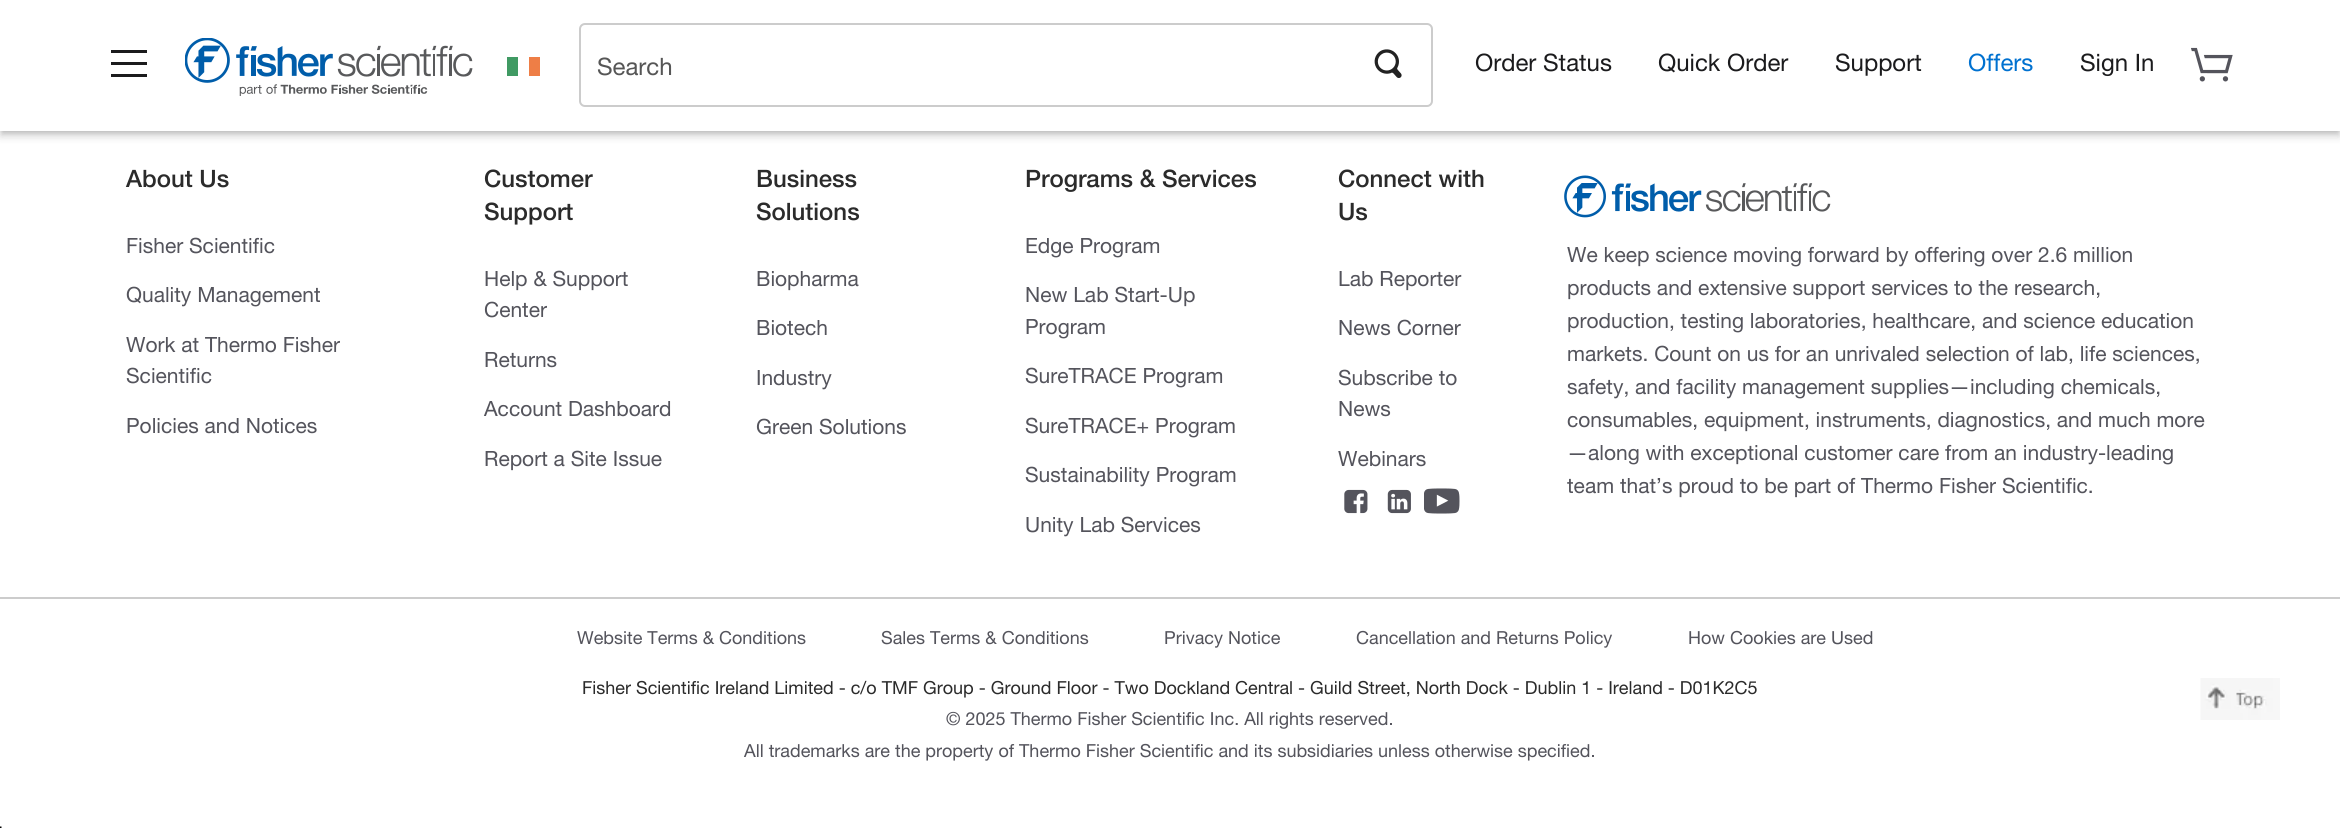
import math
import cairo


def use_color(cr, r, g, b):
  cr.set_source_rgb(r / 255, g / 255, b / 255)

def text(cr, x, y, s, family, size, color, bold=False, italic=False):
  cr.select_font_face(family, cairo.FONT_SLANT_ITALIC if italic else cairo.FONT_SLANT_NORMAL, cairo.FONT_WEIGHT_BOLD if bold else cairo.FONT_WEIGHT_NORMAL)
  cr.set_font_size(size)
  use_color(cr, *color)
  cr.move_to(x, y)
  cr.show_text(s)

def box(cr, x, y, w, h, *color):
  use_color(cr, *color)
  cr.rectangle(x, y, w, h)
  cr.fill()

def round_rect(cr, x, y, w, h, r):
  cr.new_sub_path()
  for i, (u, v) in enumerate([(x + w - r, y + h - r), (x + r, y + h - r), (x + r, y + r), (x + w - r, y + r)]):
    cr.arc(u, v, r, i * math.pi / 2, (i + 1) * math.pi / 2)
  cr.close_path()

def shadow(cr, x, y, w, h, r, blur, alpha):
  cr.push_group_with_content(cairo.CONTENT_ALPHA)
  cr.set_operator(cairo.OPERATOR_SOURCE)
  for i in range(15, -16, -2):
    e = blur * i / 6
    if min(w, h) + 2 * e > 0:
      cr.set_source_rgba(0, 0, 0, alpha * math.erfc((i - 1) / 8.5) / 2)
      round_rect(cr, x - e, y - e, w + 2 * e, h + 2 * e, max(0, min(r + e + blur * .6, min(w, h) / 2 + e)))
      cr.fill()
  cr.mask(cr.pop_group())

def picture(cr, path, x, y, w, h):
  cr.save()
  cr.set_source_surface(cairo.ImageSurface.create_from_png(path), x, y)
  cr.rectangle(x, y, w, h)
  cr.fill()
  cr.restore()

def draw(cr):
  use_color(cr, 255, 255, 255)
  cr.paint()
  use_color(cr, 0, 0, 0)
  shadow(cr, 0, 6, 2340, 131, 0, 4, 0.14)
  shadow(cr, 2, 5, 2337, 127, 0, 3, 0.2)
  box(cr, 0, 0, 2340, 131, 255, 255, 255)
  box(cr, 111, 62, 36, 3, 27, 27, 29)
  box(cr, 111, 50, 36, 3, 27, 27, 29)
  box(cr, 111, 74, 36, 3, 27, 27, 29)
  picture(cr, "img_01.png", 185, 38, 288, 58)
  box(cr, 507, 57, 11, 19, 64, 154, 99)
  box(cr, 529, 57, 11, 19, 238, 126, 70)
  round_rect(cr, 580, 24, 852, 82, 5)
  use_color(cr, 204, 204, 204)
  cr.stroke()
  picture(cr, "img_02.png", 1374, 49, 28, 29)
  picture(cr, "img_03.png", 2191, 47, 42, 35)
  picture(cr, "img_04.png", 1344, 489, 24, 25)
  picture(cr, "img_05.png", 1387, 489, 24, 25)
  picture(cr, "img_06.png", 1424, 488, 36, 26)
  picture(cr, "img_07.png", 1564, 175, 267, 43)
  box(cr, 0, 597, 2340, 2, 204, 204, 204)
  picture(cr, "img_08.png", 2200, 678, 80, 42)
  picture(cr, "img_09.png", 0, 826, 2, 2)
  text(cr, 597, 75, "Search", "Helvetica Neue", 24, (86, 86, 86))
  text(cr, 1475, 71, "Order Status", "Helvetica Neue", 24, (27, 27, 29))
  text(cr, 1658, 71, "Quick Order", "Helvetica Neue", 24, (27, 27, 29))
  text(cr, 1835, 71, "Support", "Helvetica Neue", 24, (27, 27, 29))
  text(cr, 1968, 71, "Offers", "Helvetica Neue", 24, (0, 113, 208))
  text(cr, 2080, 71, "Sign In", "Helvetica Neue", 24, (27, 27, 29))
  text(cr, 126, 187, "About Us", "Helvetica Neue Medium", 24, (43, 43, 43))
  text(cr, 126, 253, "Fisher Scientific", "Helvetica Neue", 21, (84, 84, 92))
  text(cr, 126, 302, "Quality Management", "Helvetica Neue", 21, (84, 84, 92))
  text(cr, 126, 352, "Work at Thermo Fisher", "Helvetica Neue", 21, (84, 84, 92))
  text(cr, 126, 383, "Scientific", "Helvetica Neue", 21, (84, 84, 92))
  text(cr, 126, 433, "Policies and Notices", "Helvetica Neue", 21, (84, 84, 92))
  text(cr, 484, 187, "Customer", "Helvetica Neue Medium", 24, (43, 43, 43))
  text(cr, 484, 220, "Support", "Helvetica Neue Medium", 24, (43, 43, 43))
  text(cr, 484, 286, "Help & Support", "Helvetica Neue", 21, (84, 84, 92))
  text(cr, 484, 317, "Center", "Helvetica Neue", 21, (84, 84, 92))
  text(cr, 484, 367, "Returns", "Helvetica Neue", 21, (84, 84, 92))
  text(cr, 484, 416, "Account Dashboard", "Helvetica Neue", 21, (84, 84, 92))
  text(cr, 484, 466, "Report a Site Issue", "Helvetica Neue", 21, (84, 84, 92))
  text(cr, 756, 187, "Business", "Helvetica Neue Medium", 24, (43, 43, 43))
  text(cr, 756, 220, "Solutions", "Helvetica Neue Medium", 24, (43, 43, 43))
  text(cr, 756, 286, "Biopharma", "Helvetica Neue", 21, (84, 84, 92))
  text(cr, 756, 335, "Biotech", "Helvetica Neue", 21, (84, 84, 92))
  text(cr, 756, 385, "Industry", "Helvetica Neue", 21, (84, 84, 92))
  text(cr, 756, 434, "Green Solutions", "Helvetica Neue", 21, (84, 84, 92))
  text(cr, 1025, 187, "Programs & Services", "Helvetica Neue Medium", 24, (43, 43, 43))
  text(cr, 1025, 253, "Edge Program", "Helvetica Neue", 21, (84, 84, 92))
  text(cr, 1025, 302, "New Lab Start-Up", "Helvetica Neue", 21, (84, 84, 92))
  text(cr, 1025, 334, "Program", "Helvetica Neue", 21, (84, 84, 92))
  text(cr, 1025, 383, "SureTRACE Program", "Helvetica Neue", 21, (84, 84, 92))
  text(cr, 1025, 433, "SureTRACE+ Program", "Helvetica Neue", 21, (84, 84, 92))
  text(cr, 1025, 482, "Sustainability Program", "Helvetica Neue", 21, (84, 84, 92))
  text(cr, 1025, 532, "Unity Lab Services", "Helvetica Neue", 21, (84, 84, 92))
  text(cr, 1338, 187, "Connect with", "Helvetica Neue Medium", 24, (43, 43, 43))
  text(cr, 1338, 220, "Us", "Helvetica Neue Medium", 24, (43, 43, 43))
  text(cr, 1338, 286, "Lab Reporter", "Helvetica Neue", 21, (84, 84, 92))
  text(cr, 1338, 335, "News Corner", "Helvetica Neue", 21, (84, 84, 92))
  text(cr, 1338, 385, "Subscribe to", "Helvetica Neue", 21, (84, 84, 92))
  text(cr, 1338, 416, "News", "Helvetica Neue", 21, (84, 84, 92))
  text(cr, 1338, 466, "Webinars", "Helvetica Neue", 21, (84, 84, 92))
  text(cr, 1567, 262, "We keep science moving forward by offering over 2.6 million", "Helvetica Neue", 21, (84, 84, 92))
  text(cr, 1567, 295, "products and extensive support services to the research,", "Helvetica Neue", 21, (84, 84, 92))
  text(cr, 1567, 328, "production, testing laboratories, healthcare, and science education", "Helvetica Neue", 21, (84, 84, 92))
  text(cr, 1567, 361, "markets. Count on us for an unrivaled selection of lab, life sciences,", "Helvetica Neue", 21, (84, 84, 92))
  text(cr, 1567, 394, "safety, and facility management supplies—including chemicals,", "Helvetica Neue", 21, (84, 84, 92))
  text(cr, 1567, 427, "consumables, equipment, instruments, diagnostics, and much more", "Helvetica Neue", 21, (84, 84, 92))
  text(cr, 1567, 460, "—along with exceptional customer care from an industry-leading", "Helvetica Neue", 21, (84, 84, 92))
  text(cr, 1567, 493, "team that’s proud to be part of Thermo Fisher Scientific.", "Helvetica Neue", 21, (84, 84, 92))
  text(cr, 577, 644, "Website Terms & Conditions", "Helvetica Neue", 18, (84, 84, 92))
  text(cr, 881, 644, "Sales Terms & Conditions", "Helvetica Neue", 18, (84, 84, 92))
  text(cr, 1164, 644, "Privacy Notice", "Helvetica Neue", 18, (84, 84, 92))
  text(cr, 1356, 644, "Cancellation and Returns Policy", "Helvetica Neue", 18, (84, 84, 92))
  text(cr, 1688, 644, "How Cookies are Used", "Helvetica Neue", 18, (84, 84, 92))
  text(cr, 582, 694, "Fisher Scientific Ireland Limited - c/o TMF Group - Ground Floor - Two Dockland Central - Guild Street, North Dock - Dublin 1 - Ireland - D01K2C5", "Helvetica Neue", 18, (43, 43, 43))
  text(cr, 946, 725, "© 2025 Thermo Fisher Scientific Inc. All rights reserved.", "Helvetica Neue", 18, (84, 84, 92))
  text(cr, 744, 757, "All trademarks are the property of Thermo Fisher Scientific and its subsidiaries unless otherwise specified.", "Helvetica Neue", 18, (84, 84, 92))


surface = cairo.ImageSurface(cairo.FORMAT_RGB24, 2340, 840)
cr = cairo.Context(surface)
options = cairo.FontOptions()
options.set_hint_metrics(cairo.HINT_METRICS_OFF)
options.set_hint_style(cairo.HINT_STYLE_NONE)
cr.set_font_options(options)
cr.set_miter_limit(4)
draw(cr)
surface.write_to_png("out.png")
